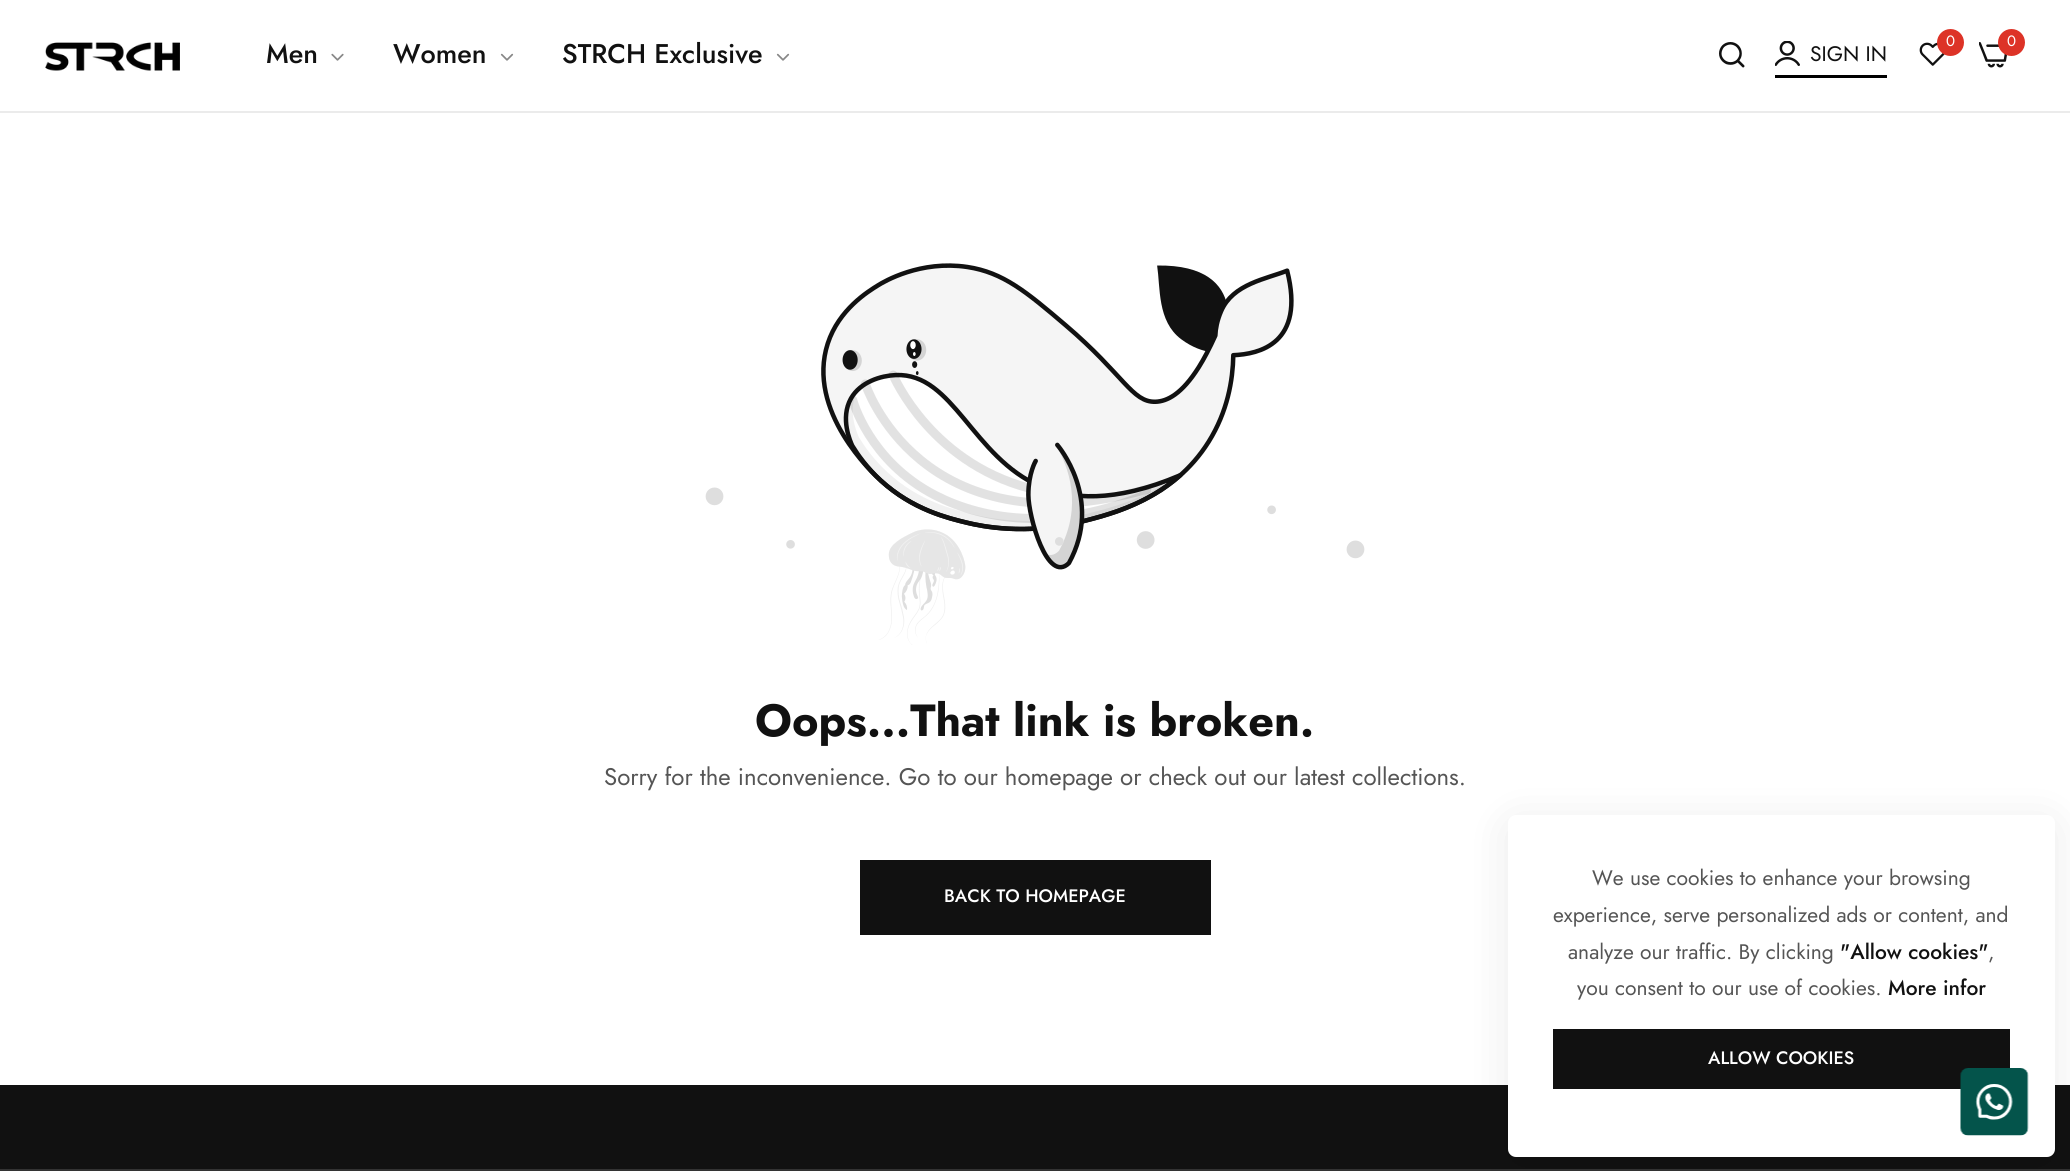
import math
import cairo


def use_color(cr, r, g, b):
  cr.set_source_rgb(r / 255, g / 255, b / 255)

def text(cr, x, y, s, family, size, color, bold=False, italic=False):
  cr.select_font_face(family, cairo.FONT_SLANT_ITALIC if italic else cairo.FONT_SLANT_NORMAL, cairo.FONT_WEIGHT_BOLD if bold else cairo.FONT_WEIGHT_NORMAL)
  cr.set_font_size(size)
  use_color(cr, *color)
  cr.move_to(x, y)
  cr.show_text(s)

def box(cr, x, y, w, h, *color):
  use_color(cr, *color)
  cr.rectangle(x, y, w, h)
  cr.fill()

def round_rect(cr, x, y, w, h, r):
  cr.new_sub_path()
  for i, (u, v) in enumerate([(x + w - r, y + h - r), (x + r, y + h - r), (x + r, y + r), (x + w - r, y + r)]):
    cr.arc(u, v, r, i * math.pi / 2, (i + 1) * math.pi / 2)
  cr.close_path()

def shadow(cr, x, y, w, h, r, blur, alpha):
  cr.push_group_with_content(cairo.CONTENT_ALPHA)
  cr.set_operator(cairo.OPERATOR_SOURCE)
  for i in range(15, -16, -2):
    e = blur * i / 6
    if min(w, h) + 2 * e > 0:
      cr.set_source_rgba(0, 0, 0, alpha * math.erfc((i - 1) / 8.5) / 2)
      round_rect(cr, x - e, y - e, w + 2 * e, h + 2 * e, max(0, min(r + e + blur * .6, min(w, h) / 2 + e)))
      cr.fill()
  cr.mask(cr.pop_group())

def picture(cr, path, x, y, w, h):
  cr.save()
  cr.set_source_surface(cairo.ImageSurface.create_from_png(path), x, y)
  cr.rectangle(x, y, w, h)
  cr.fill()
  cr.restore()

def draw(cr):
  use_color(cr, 255, 255, 255)
  cr.paint()
  box(cr, 0, 111, 2070, 2, 235, 235, 235)
  picture(cr, "img_01.png", 45, 42, 135, 29)
  picture(cr, "img_02.png", 331, 53, 13, 8)
  picture(cr, "img_03.png", 500, 53, 14, 8)
  picture(cr, "img_03.png", 776, 53, 14, 8)
  picture(cr, "img_04.png", 1719, 42, 26, 26)
  box(cr, 1775, 75, 112, 3, 0, 0, 0)
  picture(cr, "img_05.png", 1775, 41, 25, 25)
  picture(cr, "img_06.png", 1919, 42, 26, 24)
  use_color(cr, 221, 51, 39)
  cr.arc(1950.5, 42.5, 13.5, 0, 2 * math.pi)
  cr.fill()
  picture(cr, "img_07.png", 1979, 42, 28, 26)
  cr.arc(2011.5, 42.5, 13.5, 0, 2 * math.pi)
  cr.fill()
  picture(cr, "img_08.png", 705, 263, 660, 382)
  box(cr, 860, 860, 351, 75, 17, 17, 17)
  box(cr, 0, 1085, 2070, 84, 17, 17, 17)
  box(cr, 0, 1169, 2070, 2, 51, 51, 51)
  use_color(cr, 0, 0, 0)
  shadow(cr, 1508, 822, 547, 342, 8, 22.5, 0.08)
  use_color(cr, 255, 255, 255)
  round_rect(cr, 1508, 815, 547, 342, 8)
  cr.fill()
  box(cr, 1553, 1029, 457, 60, 17, 17, 17)
  picture(cr, "img_09.png", 1960, 1068, 69, 68)
  text(cr, 266, 63, "Men", "Jost Medium", 27, (17, 17, 17))
  text(cr, 393, 63, "Women", "Jost Medium", 27, (17, 17, 17))
  text(cr, 562, 63, "STRCH Exclusive", "Jost Medium", 27, (17, 17, 17))
  text(cr, 1810, 61, "SIGN IN", "Jost", 21, (17, 17, 17))
  text(cr, 1946, 46, "0", "Jost", 15, (255, 255, 255))
  text(cr, 2007, 46, "0", "Jost", 15, (255, 255, 255))
  text(cr, 755, 736, "Oops...That link is broken.", "Jost", 45, (17, 17, 17), bold=True)
  text(cr, 604, 785, "Sorry for the inconvenience. Go to our homepage or check out our latest collections.", "Jost", 24, (85, 85, 85))
  text(cr, 944, 902, "BACK TO HOMEPAGE", "Jost Medium", 18, (255, 255, 255))
  text(cr, 1592, 885, "We use cookies to enhance your browsing", "Jost", 21, (85, 85, 85))
  text(cr, 1553, 922, "experience, serve personalized ads or content, and", "Jost", 21, (85, 85, 85))
  text(cr, 1568, 959, "analyze our traffic. By clicking", "Jost", 21, (85, 85, 85))
  text(cr, 1840, 959, "\"Allow cookies\"", "Jost Medium", 21, (17, 17, 17))
  text(cr, 1988, 959, ",", "Jost", 21, (85, 85, 85))
  text(cr, 1577, 995, "you consent to our use of cookies.", "Jost", 21, (85, 85, 85))
  text(cr, 1888, 995, "More infor", "Jost Medium", 21, (17, 17, 17))
  text(cr, 1708, 1064, "ALLOW COOKIES", "Jost Medium", 18, (255, 255, 255))


surface = cairo.ImageSurface(cairo.FORMAT_RGB24, 2070, 1171)
cr = cairo.Context(surface)
options = cairo.FontOptions()
options.set_hint_metrics(cairo.HINT_METRICS_OFF)
options.set_hint_style(cairo.HINT_STYLE_NONE)
cr.set_font_options(options)
cr.set_miter_limit(4)
draw(cr)
surface.write_to_png("out.png")
